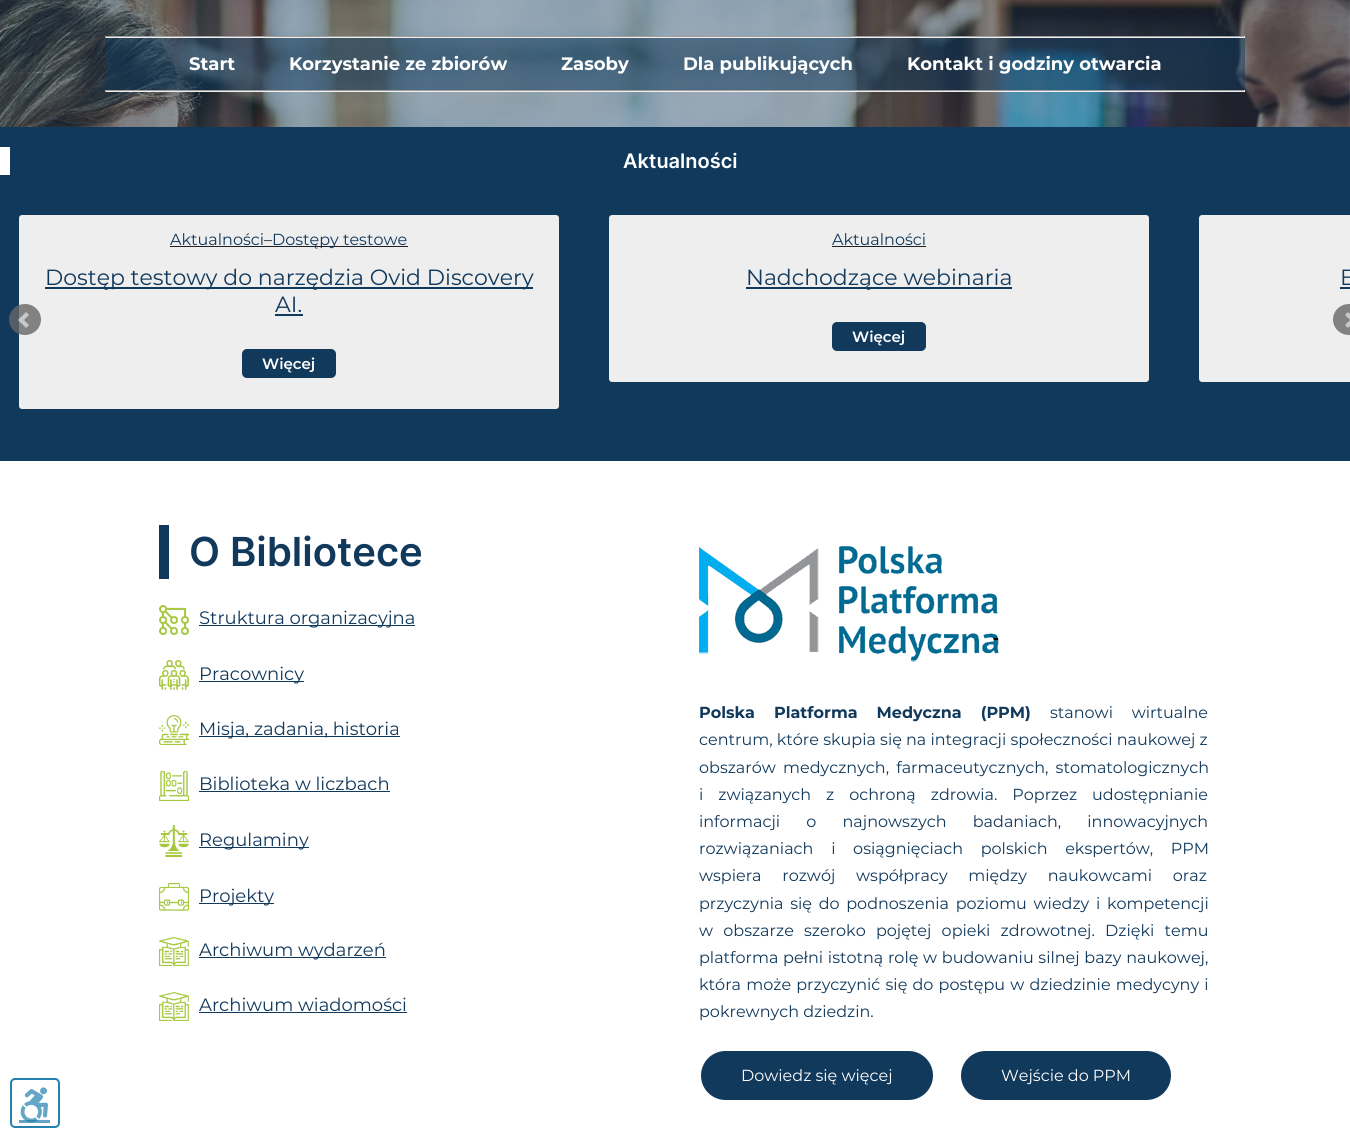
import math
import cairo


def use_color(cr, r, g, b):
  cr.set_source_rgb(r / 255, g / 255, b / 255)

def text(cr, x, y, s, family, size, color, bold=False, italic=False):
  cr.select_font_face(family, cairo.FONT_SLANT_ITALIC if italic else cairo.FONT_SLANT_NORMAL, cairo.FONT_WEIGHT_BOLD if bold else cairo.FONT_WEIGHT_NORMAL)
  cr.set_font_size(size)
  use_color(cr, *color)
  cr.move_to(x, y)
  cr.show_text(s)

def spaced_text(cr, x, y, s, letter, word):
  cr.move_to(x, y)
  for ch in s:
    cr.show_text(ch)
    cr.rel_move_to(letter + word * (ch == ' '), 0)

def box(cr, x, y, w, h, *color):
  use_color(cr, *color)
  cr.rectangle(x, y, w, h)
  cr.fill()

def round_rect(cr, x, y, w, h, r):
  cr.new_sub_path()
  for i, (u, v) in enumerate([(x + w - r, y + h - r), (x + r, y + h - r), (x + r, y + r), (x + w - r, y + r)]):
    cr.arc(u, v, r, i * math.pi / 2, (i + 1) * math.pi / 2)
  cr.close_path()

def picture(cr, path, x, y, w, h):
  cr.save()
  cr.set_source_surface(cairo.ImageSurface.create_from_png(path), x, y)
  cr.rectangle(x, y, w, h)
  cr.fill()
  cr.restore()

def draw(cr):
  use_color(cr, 255, 255, 255)
  cr.paint()
  picture(cr, "img_01.png", 0, 0, 1350, 127)
  cr.set_source_rgba(0.067, 0.224, 0.361, 0.53)
  cr.rectangle(105, 38, 1140, 52)
  cr.fill()
  box(cr, 105, 36, 1140, 1, 159, 159, 159)
  box(cr, 1244, 36, 1, 2, 238, 238, 238)
  box(cr, 105, 37, 1140, 1, 238, 238, 238)
  box(cr, 105, 36, 1, 2, 159, 159, 159)
  box(cr, 105, 90, 1140, 1, 159, 159, 159)
  box(cr, 1244, 90, 1, 2, 238, 238, 238)
  box(cr, 105, 91, 1140, 1, 238, 238, 238)
  box(cr, 105, 90, 1, 2, 159, 159, 159)
  box(cr, 0, 127, 1350, 334, 17, 57, 92)
  box(cr, 0, 147, 10, 28, 255, 255, 255)
  use_color(cr, 238, 238, 238)
  round_rect(cr, 19, 215, 540, 194, 3)
  cr.fill()
  box(cr, 170, 246, 238, 1, 31, 32, 35)
  box(cr, 45, 287, 488, 2, 17, 57, 92)
  box(cr, 275, 314, 28, 2, 17, 57, 92)
  round_rect(cr, 242, 349, 94, 29, 5)
  cr.fill()
  use_color(cr, 238, 238, 238)
  round_rect(cr, 609, 215, 540, 167, 3)
  cr.fill()
  box(cr, 832, 246, 94, 1, 31, 32, 35)
  box(cr, 746, 287, 266, 2, 17, 57, 92)
  round_rect(cr, 832, 322, 94, 29, 5)
  cr.fill()
  use_color(cr, 238, 238, 238)
  cr.new_path()
  cr.move_to(1202, 215)
  cr.line_to(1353, 215)
  cr.line_to(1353, 382)
  cr.line_to(1202, 382)
  cr.curve_to(1200.5, 382, 1199, 380.5, 1199, 379)
  cr.line_to(1199, 218)
  cr.curve_to(1199, 216.5, 1200.5, 215, 1202, 215)
  cr.close_path()
  cr.fill()
  box(cr, 1340, 287, 10, 2, 17, 57, 92)
  picture(cr, "img_02.png", 9, 304, 32, 31)
  picture(cr, "img_03.png", 1333, 304, 17, 31)
  box(cr, 159, 525, 10, 54, 17, 57, 92)
  picture(cr, "img_04.png", 159, 605, 30, 30)
  box(cr, 199, 625, 216, 1, 17, 57, 92)
  picture(cr, "img_05.png", 159, 660, 30, 30)
  box(cr, 199, 681, 105, 1, 17, 57, 92)
  picture(cr, "img_06.png", 159, 715, 30, 30)
  box(cr, 199, 736, 201, 1, 17, 57, 92)
  picture(cr, "img_07.png", 159, 771, 30, 30)
  box(cr, 199, 791, 191, 1, 17, 57, 92)
  picture(cr, "img_08.png", 159, 825, 30, 32)
  box(cr, 199, 847, 110, 1, 17, 57, 92)
  picture(cr, "img_09.png", 159, 883, 30, 28)
  box(cr, 199, 903, 75, 1, 17, 57, 92)
  picture(cr, "img_10.png", 159, 937, 30, 29)
  box(cr, 199, 957, 187, 1, 17, 57, 92)
  picture(cr, "img_10.png", 159, 992, 30, 29)
  box(cr, 199, 1012, 208, 1, 17, 57, 92)
  picture(cr, "img_11.png", 699, 546, 300, 116)
  round_rect(cr, 700, 1050, 234, 51, 25.5)
  cr.fill_preserve()
  use_color(cr, 255, 255, 255)
  cr.stroke()
  use_color(cr, 17, 57, 92)
  round_rect(cr, 960, 1050, 212, 51, 25.5)
  cr.fill_preserve()
  use_color(cr, 255, 255, 255)
  cr.stroke()
  round_rect(cr, 11, 1079, 48, 48, 4)
  use_color(cr, 37, 129, 175)
  cr.stroke()
  box(cr, 19, 1120, 31, 3, 100, 165, 198)
  picture(cr, "img_12.png", 20, 1087, 28, 36)
  text(cr, 189, 70, "Start", "Montserrat", 18, (255, 255, 255), bold=True)
  text(cr, 289, 70, "Korzystanie ze zbiorów", "Montserrat", 18, (255, 255, 255), bold=True)
  text(cr, 561, 70, "Zasoby", "Montserrat", 18, (255, 255, 255), bold=True)
  text(cr, 683, 70, "Dla publikujących", "Montserrat", 18, (255, 255, 255), bold=True)
  text(cr, 907, 70, "Kontakt i godziny otwarcia", "Montserrat", 18, (255, 255, 255), bold=True)
  text(cr, 623, 168, "Aktualności", "Inter SemiBold", 20, (255, 255, 255))
  text(cr, 170, 245, "Aktualności", "Montserrat", 16, (17, 57, 92))
  text(cr, 264, 245, "–", "Montserrat", 16, (31, 32, 35))
  text(cr, 272, 245, "Dostępy testowe", "Montserrat", 16, (17, 57, 92))
  text(cr, 45, 285, "Dostęp testowy do narzędzia Ovid Discovery", "Montserrat", 22, (17, 57, 92))
  text(cr, 275, 312, "AI.", "Montserrat", 22, (17, 57, 92))
  text(cr, 262, 369, "Więcej", "Montserrat SemiBold", 15, (255, 255, 255))
  text(cr, 832, 245, "Aktualności", "Montserrat", 16, (17, 57, 92))
  text(cr, 746, 285, "Nadchodzące webinaria", "Montserrat", 22, (17, 57, 92))
  text(cr, 852, 342, "Więcej", "Montserrat SemiBold", 15, (255, 255, 255))
  text(cr, 1340, 285, "E", "Montserrat", 22, (17, 57, 92))
  text(cr, 189, 566, "O Bibliotece", "Inter SemiBold", 40, (17, 57, 92))
  text(cr, 199, 624, "Struktura organizacyjna", "Montserrat", 18, (17, 57, 92))
  text(cr, 199, 680, "Pracownicy", "Montserrat", 18, (17, 57, 92))
  text(cr, 199, 735, "Misja, zadania, historia", "Montserrat", 18, (17, 57, 92))
  text(cr, 199, 790, "Biblioteka w liczbach", "Montserrat", 18, (17, 57, 92))
  text(cr, 199, 846, "Regulaminy", "Montserrat", 18, (17, 57, 92))
  text(cr, 199, 902, "Projekty", "Montserrat", 18, (17, 57, 92))
  text(cr, 199, 956, "Archiwum wydarzeń", "Montserrat", 18, (17, 57, 92))
  text(cr, 199, 1011, "Archiwum wiadomości", "Montserrat", 18, (17, 57, 92))
  cr.select_font_face("Montserrat", cairo.FONT_SLANT_NORMAL, cairo.FONT_WEIGHT_BOLD)
  cr.set_font_size(16)
  spaced_text(cr, 699, 718, "Polska Platforma Medyczna (PPM)", 0, 14.5)
  cr.select_font_face("Montserrat")
  spaced_text(cr, 1050, 718, "stanowi wirtualne", 0, 14.5)
  text(cr, 699, 745, "centrum, które skupia się na integracji społeczności naukowej z", "Montserrat", 16, (17, 57, 92))
  spaced_text(cr, 699, 773, "obszarów medycznych, farmaceutycznych, stomatologicznych", 0, 3)
  spaced_text(cr, 699, 800, "i związanych z ochroną zdrowia. Poprzez udostępnianie", 0, 10.75)
  spaced_text(cr, 699, 827, "informacji o najnowszych badaniach, innowacyjnych", 0, 22)
  spaced_text(cr, 699, 854, "rozwiązaniach i osiągnięciach polskich ekspertów, PPM", 0, 13.5)
  spaced_text(cr, 699, 881, "wspiera rozwój współpracy między naukowcami oraz", 0, 16.5)
  spaced_text(cr, 699, 909, "przyczynia się do podnoszenia poziomu wiedzy i kompetencji", 0, 2.5)
  spaced_text(cr, 699, 936, "w obszarze szeroko pojętej opieki zdrowotnej. Dzięki temu", 0, 6)
  spaced_text(cr, 699, 963, "platforma pełni istotną rolę w budowaniu silnej bazy naukowej,", 0, 0.5)
  spaced_text(cr, 699, 990, "która może przyczynić się do postępu w dziedzinie medycyny i", 0, 1)
  text(cr, 699, 1017, "pokrewnych dziedzin.", "Montserrat", 16, (17, 57, 92))
  text(cr, 741, 1081, "Dowiedz się więcej", "Montserrat", 16, (255, 255, 255))
  text(cr, 1001, 1081, "Wejście do PPM", "Montserrat", 16, (255, 255, 255))


surface = cairo.ImageSurface(cairo.FORMAT_RGB24, 1350, 1138)
cr = cairo.Context(surface)
options = cairo.FontOptions()
options.set_hint_metrics(cairo.HINT_METRICS_OFF)
options.set_hint_style(cairo.HINT_STYLE_NONE)
cr.set_font_options(options)
cr.set_miter_limit(4)
draw(cr)
surface.write_to_png("out.png")
